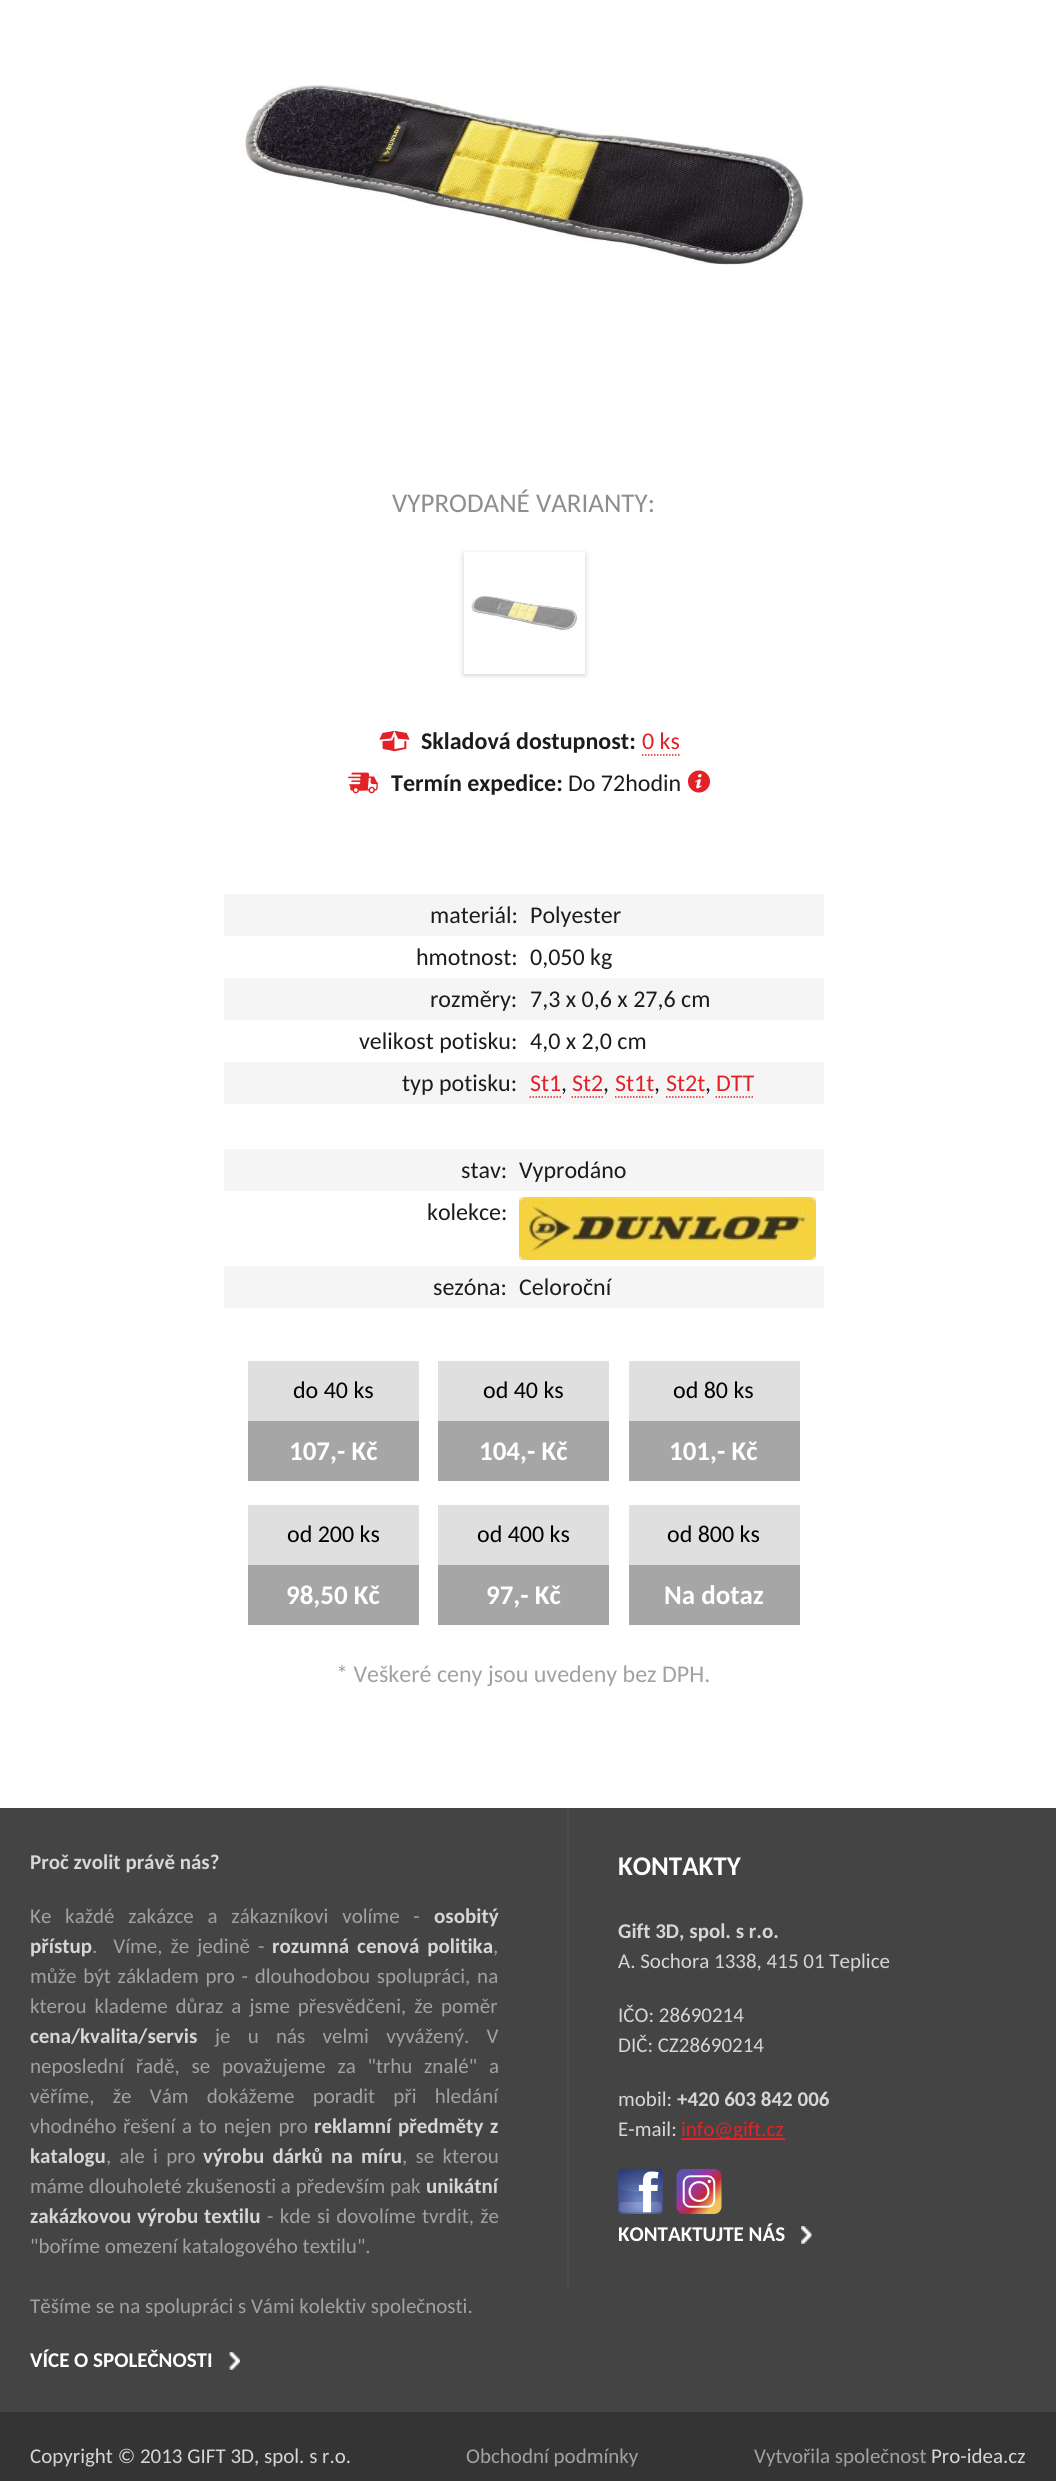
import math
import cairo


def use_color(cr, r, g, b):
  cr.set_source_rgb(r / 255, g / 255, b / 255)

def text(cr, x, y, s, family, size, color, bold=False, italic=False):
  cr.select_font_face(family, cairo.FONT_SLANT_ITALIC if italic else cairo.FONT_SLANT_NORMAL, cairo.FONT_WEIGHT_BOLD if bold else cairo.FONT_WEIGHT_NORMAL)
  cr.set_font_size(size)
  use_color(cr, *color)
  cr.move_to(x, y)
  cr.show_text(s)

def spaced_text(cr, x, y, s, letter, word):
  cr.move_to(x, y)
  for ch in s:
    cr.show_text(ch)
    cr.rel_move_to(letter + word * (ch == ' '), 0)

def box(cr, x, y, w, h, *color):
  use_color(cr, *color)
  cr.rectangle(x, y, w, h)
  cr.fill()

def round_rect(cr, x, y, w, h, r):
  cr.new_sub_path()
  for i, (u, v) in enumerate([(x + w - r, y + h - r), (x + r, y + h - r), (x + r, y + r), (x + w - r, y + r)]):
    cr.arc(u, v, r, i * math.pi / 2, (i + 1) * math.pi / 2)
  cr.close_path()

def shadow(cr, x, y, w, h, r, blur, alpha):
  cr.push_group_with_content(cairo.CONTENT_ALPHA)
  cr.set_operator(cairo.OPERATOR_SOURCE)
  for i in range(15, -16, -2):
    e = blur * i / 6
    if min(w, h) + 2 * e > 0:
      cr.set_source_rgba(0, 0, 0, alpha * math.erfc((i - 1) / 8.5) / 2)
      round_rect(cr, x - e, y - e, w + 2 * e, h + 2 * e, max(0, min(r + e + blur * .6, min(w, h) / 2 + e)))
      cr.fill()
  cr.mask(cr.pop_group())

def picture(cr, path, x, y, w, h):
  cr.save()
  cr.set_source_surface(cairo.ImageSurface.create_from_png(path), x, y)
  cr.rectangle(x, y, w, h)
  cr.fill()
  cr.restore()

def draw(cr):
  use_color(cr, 255, 255, 255)
  cr.paint()
  picture(cr, "img_01.png", 243, 85, 561, 180)
  use_color(cr, 128, 128, 128)
  shadow(cr, 464, 554, 121, 121, 0, 3, 0.4)
  box(cr, 464, 552, 121, 122, 255, 255, 255)
  picture(cr, "img_02.png", 471, 594, 106, 38)
  picture(cr, "img_03.png", 379, 730, 31, 22)
  cr.new_path()
  cr.move_to(642, 755)
  cr.line_to(679.5, 755)
  use_color(cr, 227, 33, 38)
  cr.set_line_width(1.5)
  cr.set_dash([1.5, 1.5])
  cr.stroke()
  picture(cr, "img_04.png", 348, 772, 30, 22)
  picture(cr, "img_05.png", 687, 770, 24, 23)
  box(cr, 224, 894, 600, 42, 245, 245, 245)
  box(cr, 224, 978, 600, 42, 245, 245, 245)
  box(cr, 224, 1062, 600, 42, 245, 245, 245)
  cr.new_path()
  cr.move_to(529.5, 1097)
  cr.line_to(561, 1097)
  use_color(cr, 227, 33, 38)
  cr.stroke()
  cr.new_path()
  cr.move_to(571.5, 1097)
  cr.line_to(603, 1097)
  cr.stroke()
  cr.new_path()
  cr.move_to(615, 1097)
  cr.line_to(654, 1097)
  cr.stroke()
  cr.new_path()
  cr.move_to(666, 1097)
  cr.line_to(705, 1097)
  cr.stroke()
  cr.new_path()
  cr.move_to(715.5, 1097)
  cr.line_to(754.5, 1097)
  cr.stroke()
  box(cr, 224, 1149, 600, 42, 245, 245, 245)
  picture(cr, "img_06.png", 519, 1197, 297, 63)
  box(cr, 224, 1266, 600, 42, 245, 245, 245)
  box(cr, 248, 1361, 171, 60, 223, 223, 223)
  box(cr, 248, 1421, 171, 60, 166, 166, 166)
  box(cr, 438, 1361, 171, 60, 223, 223, 223)
  box(cr, 438, 1421, 171, 60, 166, 166, 166)
  box(cr, 629, 1361, 171, 60, 223, 223, 223)
  box(cr, 629, 1421, 171, 60, 166, 166, 166)
  box(cr, 248, 1505, 171, 60, 223, 223, 223)
  box(cr, 248, 1565, 171, 60, 166, 166, 166)
  box(cr, 438, 1505, 171, 60, 223, 223, 223)
  box(cr, 438, 1565, 171, 60, 166, 166, 166)
  box(cr, 629, 1505, 171, 60, 223, 223, 223)
  box(cr, 629, 1565, 171, 60, 166, 166, 166)
  box(cr, 0, 1808, 1056, 604, 68, 68, 68)
  picture(cr, "img_07.png", 229, 2352, 11, 18)
  box(cr, 567, 1808, 2, 483, 74, 74, 74)
  box(cr, 681, 2138, 104, 2, 227, 33, 38)
  picture(cr, "img_08.png", 618, 2169, 45, 45)
  picture(cr, "img_09.png", 676, 2169, 46, 45)
  picture(cr, "img_10.png", 801, 2226, 11, 18)
  box(cr, 0, 2412, 1056, 69, 52, 52, 52)
  text(cr, 392, 512, "VYPRODANÉ VARIANTY:", "Carlito", 27, (142, 142, 143))
  text(cr, 421, 749, "Skladová dostupnost:", "Carlito", 24, (28, 28, 31), bold=True)
  text(cr, 642, 749, "0 ks", "Carlito", 24, (227, 33, 38))
  text(cr, 391, 791, "Termín expedice:", "Carlito", 24, (28, 28, 31), bold=True)
  text(cr, 568, 791, "Do 72hodin", "Carlito", 24, (28, 28, 31))
  text(cr, 430, 923, "materiál:", "Carlito", 24, (28, 28, 31))
  text(cr, 530, 923, "Polyester", "Carlito", 24, (28, 28, 31))
  text(cr, 416, 965, "hmotnost:", "Carlito", 24, (28, 28, 31))
  text(cr, 530, 965, "0,050 kg", "Carlito", 24, (28, 28, 31))
  text(cr, 430, 1007, "rozměry:", "Carlito", 24, (28, 28, 31))
  text(cr, 530, 1007, "7,3 x 0,6 x 27,6 cm", "Carlito", 24, (28, 28, 31))
  text(cr, 359, 1049, "velikost potisku:", "Carlito", 24, (28, 28, 31))
  text(cr, 530, 1049, "4,0 x 2,0 cm", "Carlito", 24, (28, 28, 31))
  text(cr, 402, 1091, "typ potisku:", "Carlito", 24, (28, 28, 31))
  text(cr, 530, 1091, "St1", "Carlito", 24, (227, 33, 38))
  text(cr, 561, 1091, ",", "Carlito", 24, (28, 28, 31))
  text(cr, 572, 1091, "St2", "Carlito", 24, (227, 33, 38))
  text(cr, 603, 1091, ",", "Carlito", 24, (28, 28, 31))
  text(cr, 615, 1091, "St1t", "Carlito", 24, (227, 33, 38))
  text(cr, 654, 1091, ",", "Carlito", 24, (28, 28, 31))
  text(cr, 666, 1091, "St2t", "Carlito", 24, (227, 33, 38))
  text(cr, 705, 1091, ",", "Carlito", 24, (28, 28, 31))
  text(cr, 716, 1091, "DTT", "Carlito", 24, (227, 33, 38))
  text(cr, 461, 1178, "stav:", "Carlito", 24, (28, 28, 31))
  text(cr, 519, 1178, "Vyprodáno", "Carlito", 24, (28, 28, 31))
  text(cr, 427, 1220, "kolekce:", "Carlito", 24, (28, 28, 31))
  text(cr, 433, 1295, "sezóna:", "Carlito", 24, (28, 28, 31))
  text(cr, 519, 1295, "Celoroční", "Carlito", 24, (28, 28, 31))
  text(cr, 293, 1398, "do 40 ks", "Carlito", 24, (0, 0, 0))
  text(cr, 289, 1460, "107,- Kč", "Carlito", 27, (255, 255, 255), bold=True)
  text(cr, 483, 1398, "od 40 ks", "Carlito", 24, (0, 0, 0))
  text(cr, 479, 1460, "104,- Kč", "Carlito", 27, (255, 255, 255), bold=True)
  text(cr, 673, 1398, "od 80 ks", "Carlito", 24, (0, 0, 0))
  text(cr, 669, 1460, "101,- Kč", "Carlito", 27, (255, 255, 255), bold=True)
  text(cr, 287, 1542, "od 200 ks", "Carlito", 24, (0, 0, 0))
  text(cr, 286, 1604, "98,50 Kč", "Carlito", 27, (255, 255, 255), bold=True)
  text(cr, 477, 1542, "od 400 ks", "Carlito", 24, (0, 0, 0))
  text(cr, 486, 1604, "97,- Kč", "Carlito", 27, (255, 255, 255), bold=True)
  text(cr, 667, 1542, "od 800 ks", "Carlito", 24, (0, 0, 0))
  text(cr, 664, 1604, "Na dotaz", "Carlito", 27, (255, 255, 255), bold=True)
  text(cr, 336, 1682, "* Veškeré ceny jsou uvedeny bez DPH.", "Carlito", 24, (161, 161, 161))
  text(cr, 30, 1869, "Proč zvolit právě nás?", "Carlito", 21, (214, 214, 214), bold=True)
  cr.select_font_face("Carlito")
  use_color(cr, 161, 161, 161)
  spaced_text(cr, 30, 1923, "Ke každé zakázce a zákazníkovi volíme -", 0, 9)
  text(cr, 434, 1923, "osobitý", "Carlito", 21, (214, 214, 214), bold=True)
  text(cr, 30, 1953, "přístup", "Carlito", 21, (214, 214, 214), bold=True)
  cr.select_font_face("Carlito")
  use_color(cr, 161, 161, 161)
  spaced_text(cr, 92, 1953, ".  Víme, že jedině -", 0, 3.25)
  cr.select_font_face("Carlito", cairo.FONT_SLANT_NORMAL, cairo.FONT_WEIGHT_BOLD)
  use_color(cr, 214, 214, 214)
  spaced_text(cr, 272, 1953, "rozumná cenová politika", 0, 3.25)
  text(cr, 493, 1953, ",", "Carlito", 21, (161, 161, 161))
  spaced_text(cr, 30, 1983, "může být základem pro - dlouhodobou spolupráci, na", 0, 2)
  spaced_text(cr, 30, 2013, "kterou klademe důraz a jsme přesvědčeni, že poměr", 0, 3.25)
  text(cr, 30, 2043, "cena/kvalita/servis", "Carlito", 21, (214, 214, 214), bold=True)
  cr.select_font_face("Carlito")
  use_color(cr, 161, 161, 161)
  spaced_text(cr, 215, 2043, "je u nás velmi vyvážený. V", 0, 12.5)
  spaced_text(cr, 30, 2073, "neposlední řadě, se považujeme za \"trhu znalé\" a", 0, 7)
  spaced_text(cr, 30, 2103, "věříme, že Vám dokážeme poradit při hledání", 0, 13.5)
  spaced_text(cr, 30, 2133, "vhodného řešení a to nejen pro", 0, 2)
  cr.select_font_face("Carlito", cairo.FONT_SLANT_NORMAL, cairo.FONT_WEIGHT_BOLD)
  use_color(cr, 214, 214, 214)
  spaced_text(cr, 314, 2133, "reklamní předměty z", 0, 2)
  text(cr, 30, 2163, "katalogu", "Carlito", 21, (214, 214, 214), bold=True)
  cr.select_font_face("Carlito")
  use_color(cr, 161, 161, 161)
  spaced_text(cr, 106, 2163, ", ale i pro", 0, 3.5)
  cr.select_font_face("Carlito", cairo.FONT_SLANT_NORMAL, cairo.FONT_WEIGHT_BOLD)
  use_color(cr, 214, 214, 214)
  spaced_text(cr, 203, 2163, "výrobu dárků na míru", 0, 3.5)
  cr.select_font_face("Carlito")
  use_color(cr, 161, 161, 161)
  spaced_text(cr, 402, 2163, ", se kterou", 0, 3.5)
  text(cr, 30, 2193, "máme dlouholeté zkušenosti a především pak", "Carlito", 21, (161, 161, 161))
  text(cr, 426, 2193, "unikátní", "Carlito", 21, (214, 214, 214), bold=True)
  spaced_text(cr, 30, 2223, "zakázkovou výrobu textilu", 0, 1)
  cr.select_font_face("Carlito")
  use_color(cr, 161, 161, 161)
  spaced_text(cr, 267, 2223, "- kde si dovolíme tvrdit, že", 0, 1.5)
  text(cr, 30, 2253, "\"boříme omezení katalogového textilu\".", "Carlito", 21, (161, 161, 161))
  text(cr, 30, 2313, "Těšíme se na spolupráci s Vámi kolektiv společnosti.", "Carlito", 21, (161, 161, 161))
  text(cr, 30, 2367, "VÍCE O SPOLEČNOSTI", "Carlito", 21, (255, 255, 255), bold=True)
  text(cr, 618, 1875, "KONTAKTY", "Carlito", 27, (255, 255, 255), bold=True)
  text(cr, 618, 1938, "Gift 3D, spol. s r.o.", "Carlito", 21, (214, 214, 214), bold=True)
  text(cr, 618, 1968, "A. Sochora 1338, 415 01 Teplice", "Carlito", 21, (214, 214, 214))
  text(cr, 618, 2022, "IČO: 28690214", "Carlito", 21, (214, 214, 214))
  text(cr, 618, 2052, "DIČ: CZ28690214", "Carlito", 21, (214, 214, 214))
  text(cr, 618, 2106, "mobil:", "Carlito", 21, (214, 214, 214))
  text(cr, 677, 2106, "+420 603 842 006", "Carlito", 21, (214, 214, 214), bold=True)
  text(cr, 618, 2136, "E-mail:", "Carlito", 21, (214, 214, 214))
  text(cr, 681, 2136, "info@gift.cz", "Carlito", 21, (227, 33, 38))
  text(cr, 618, 2241, "KONTAKTUJTE NÁS", "Carlito", 21, (255, 255, 255), bold=True)
  text(cr, 30, 2463, "Copyright © 2013 GIFT 3D, spol. s r.o.", "Carlito", 21, (214, 214, 214))
  text(cr, 466, 2463, "Obchodní podmínky", "Carlito", 21, (161, 161, 161))
  text(cr, 754, 2463, "Vytvořila společnost", "Carlito", 21, (161, 161, 161))
  text(cr, 931, 2463, "Pro-idea.cz", "Carlito", 21, (214, 214, 214))


surface = cairo.ImageSurface(cairo.FORMAT_RGB24, 1056, 2481)
cr = cairo.Context(surface)
options = cairo.FontOptions()
options.set_hint_metrics(cairo.HINT_METRICS_OFF)
options.set_hint_style(cairo.HINT_STYLE_NONE)
cr.set_font_options(options)
cr.set_miter_limit(4)
draw(cr)
surface.write_to_png("out.png")
